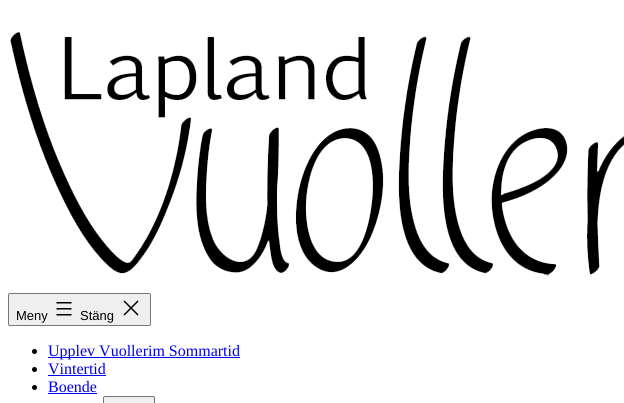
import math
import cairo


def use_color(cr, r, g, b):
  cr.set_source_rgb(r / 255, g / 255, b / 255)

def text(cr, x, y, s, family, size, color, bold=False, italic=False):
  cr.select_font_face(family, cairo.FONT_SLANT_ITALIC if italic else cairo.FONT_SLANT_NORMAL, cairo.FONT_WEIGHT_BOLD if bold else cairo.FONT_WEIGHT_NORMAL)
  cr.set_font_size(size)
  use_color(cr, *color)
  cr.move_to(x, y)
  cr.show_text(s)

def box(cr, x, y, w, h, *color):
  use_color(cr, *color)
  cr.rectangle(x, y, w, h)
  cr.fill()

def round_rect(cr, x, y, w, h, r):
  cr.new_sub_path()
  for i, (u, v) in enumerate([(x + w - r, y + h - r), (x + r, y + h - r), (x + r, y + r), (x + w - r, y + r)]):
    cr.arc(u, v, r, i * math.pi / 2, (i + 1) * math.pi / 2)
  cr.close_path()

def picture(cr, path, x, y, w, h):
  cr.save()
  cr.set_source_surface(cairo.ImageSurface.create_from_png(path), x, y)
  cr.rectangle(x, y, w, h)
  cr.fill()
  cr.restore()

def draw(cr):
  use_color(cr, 255, 255, 255)
  cr.paint()
  picture(cr, "img_01.png", 10, 32, 614, 244)
  use_color(cr, 239, 239, 239)
  round_rect(cr, 8.5, 293.5, 142, 32, 1.5)
  cr.fill_preserve()
  use_color(cr, 118, 118, 118)
  cr.set_line_width(1)
  cr.stroke()
  picture(cr, "img_02.png", 56, 302, 16, 14)
  picture(cr, "img_03.png", 123, 300, 16, 16)
  use_color(cr, 0, 0, 0)
  cr.arc(34.5, 351.5, 2.5, 0, 2 * math.pi)
  cr.fill()
  box(cr, 48, 357, 192, 1, 0, 0, 238)
  use_color(cr, 0, 0, 0)
  cr.arc(34.5, 369.5, 2.5, 0, 2 * math.pi)
  cr.fill()
  box(cr, 48, 375, 58, 1, 0, 0, 238)
  use_color(cr, 0, 0, 0)
  cr.arc(34.5, 387.5, 2.5, 0, 2 * math.pi)
  cr.fill()
  box(cr, 48, 393, 49, 1, 0, 0, 238)
  use_color(cr, 239, 239, 239)
  round_rect(cr, 103.5, 396.5, 51, 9, 1.5)
  cr.fill_preserve()
  use_color(cr, 118, 118, 118)
  cr.stroke()
  text(cr, 16, 320, "Meny", "Liberation Sans", 13, (0, 0, 0))
  text(cr, 80, 320, "Stäng", "Liberation Sans", 13, (0, 0, 0))
  text(cr, 48, 356, "Upplev Vuollerim Sommartid", "Liberation Serif", 16, (0, 0, 238))
  text(cr, 48, 374, "Vintertid", "Liberation Serif", 16, (0, 0, 238))
  text(cr, 48, 392, "Boende", "Liberation Serif", 16, (0, 0, 238))


surface = cairo.ImageSurface(cairo.FORMAT_RGB24, 624, 403)
cr = cairo.Context(surface)
options = cairo.FontOptions()
options.set_hint_metrics(cairo.HINT_METRICS_OFF)
options.set_hint_style(cairo.HINT_STYLE_NONE)
cr.set_font_options(options)
cr.set_miter_limit(4)
draw(cr)
surface.write_to_png("out.png")
